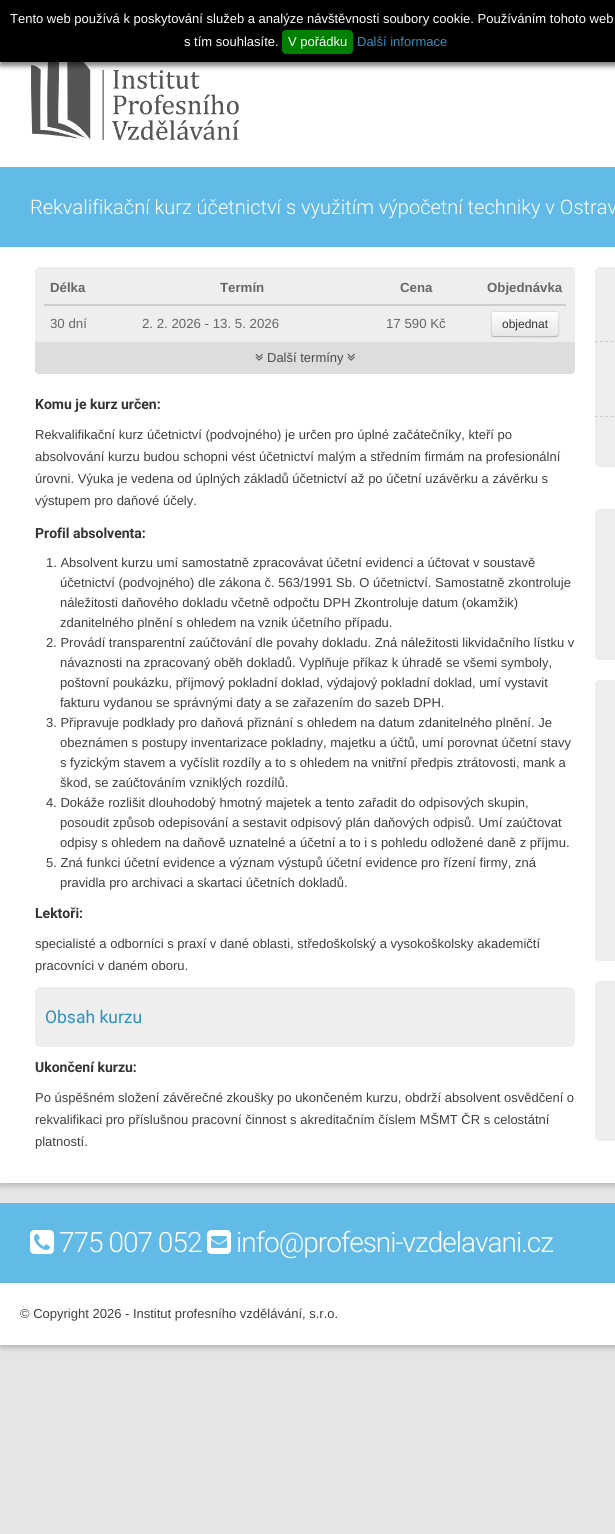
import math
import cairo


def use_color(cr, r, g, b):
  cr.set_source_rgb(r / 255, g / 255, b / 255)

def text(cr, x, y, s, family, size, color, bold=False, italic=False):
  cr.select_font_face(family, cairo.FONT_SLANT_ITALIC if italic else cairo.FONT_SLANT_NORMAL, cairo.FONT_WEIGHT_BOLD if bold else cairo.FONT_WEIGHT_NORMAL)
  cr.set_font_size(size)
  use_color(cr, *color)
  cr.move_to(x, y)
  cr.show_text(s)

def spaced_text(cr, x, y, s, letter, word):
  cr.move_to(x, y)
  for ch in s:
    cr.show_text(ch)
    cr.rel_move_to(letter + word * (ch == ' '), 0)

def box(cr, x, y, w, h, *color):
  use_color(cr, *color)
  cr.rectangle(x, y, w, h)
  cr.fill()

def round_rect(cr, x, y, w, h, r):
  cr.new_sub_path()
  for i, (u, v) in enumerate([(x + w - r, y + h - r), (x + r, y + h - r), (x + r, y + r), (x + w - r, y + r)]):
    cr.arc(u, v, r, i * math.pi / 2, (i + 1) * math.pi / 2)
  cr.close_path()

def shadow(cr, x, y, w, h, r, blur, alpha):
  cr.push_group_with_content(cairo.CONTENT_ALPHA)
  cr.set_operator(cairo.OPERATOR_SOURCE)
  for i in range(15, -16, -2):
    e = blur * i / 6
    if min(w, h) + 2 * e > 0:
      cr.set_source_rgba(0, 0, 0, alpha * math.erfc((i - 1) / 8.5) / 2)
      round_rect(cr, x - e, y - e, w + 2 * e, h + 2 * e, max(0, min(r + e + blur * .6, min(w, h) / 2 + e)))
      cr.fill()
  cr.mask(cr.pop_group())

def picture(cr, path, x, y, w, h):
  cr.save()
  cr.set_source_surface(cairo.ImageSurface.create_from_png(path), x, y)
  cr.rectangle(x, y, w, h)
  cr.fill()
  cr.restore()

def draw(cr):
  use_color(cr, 229, 229, 229)
  cr.paint()
  box(cr, 0, 62, 615, 105, 255, 255, 255)
  picture(cr, "img_01.png", 31, 62, 208, 78)
  use_color(cr, 0, 0, 0)
  shadow(cr, 0, 4, 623, 62, 0, 2.5, 0.5)
  box(cr, 0, 0, 615, 62, 0, 0, 0)
  use_color(cr, 0, 128, 0)
  round_rect(cr, 282, 30, 71, 24, 4)
  cr.fill()
  box(cr, 0, 167, 615, 80, 98, 187, 230)
  use_color(cr, 0, 0, 0)
  shadow(cr, 0, 250, 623, 936, 0, 2.5, 0.2)
  box(cr, 0, 247, 615, 936, 255, 255, 255)
  use_color(cr, 238, 238, 238)
  round_rect(cr, 35, 267, 540, 107, 4)
  cr.fill()
  box(cr, 44, 304, 522, 2, 204, 204, 204)
  use_color(cr, 0, 0, 0)
  shadow(cr, 491, 312, 68, 26, 3, 1, 0.05)
  use_color(cr, 245, 245, 245)
  round_rect(cr, 491, 311, 68, 26, 3)
  cr.fill()
  cr.save()
  round_rect(cr, 491, 311, 68, 26, 3)
  cr.clip()
  gradient = cairo.LinearGradient(525, 312, 525, 336)
  gradient.add_color_stop_rgba(0, 1, 1, 1, 1)
  gradient.add_color_stop_rgba(1, 0.902, 0.902, 0.902, 1)
  cr.set_source(gradient)
  cr.rectangle(491, 312, 68, 24)
  cr.fill()
  cr.restore()
  cr.new_path()
  cr.move_to(558, 336)
  cr.line_to(557.5, 336)
  cr.curve_to(555.5, 337.5, 510.5, 336.5, 504.5, 336.5)
  cr.line_to(494, 336.5)
  cr.line_to(492, 336)
  use_color(cr, 179, 179, 179)
  cr.set_line_width(1)
  cr.stroke()
  cr.new_path()
  cr.move_to(492, 336)
  cr.curve_to(490.5, 334, 491.5, 326.5, 491.5, 324)
  cr.curve_to(491.5, 309.5, 489, 311.5, 504.5, 311.5)
  cr.line_to(545.5, 311.5)
  cr.curve_to(561, 311.5, 558.5, 309.5, 558.5, 324)
  cr.curve_to(558.5, 326.5, 559.5, 334, 558, 336)
  cr.set_source_rgba(0, 0, 0, 0.1)
  cr.stroke()
  use_color(cr, 221, 221, 221)
  cr.new_path()
  cr.move_to(35, 342)
  cr.line_to(575, 342)
  cr.line_to(575, 370)
  cr.curve_to(575, 372, 573, 374, 571, 374)
  cr.line_to(39, 374)
  cr.curve_to(37, 374, 35, 372, 35, 370)
  cr.close_path()
  cr.fill()
  picture(cr, "img_02.png", 255, 353, 8, 8)
  picture(cr, "img_02.png", 347, 353, 8, 8)
  use_color(cr, 238, 238, 238)
  round_rect(cr, 35, 987, 540, 60, 5)
  cr.fill()
  round_rect(cr, 595, 267, 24, 200, 4)
  cr.fill()
  cr.new_path()
  cr.move_to(595, 341.5)
  cr.line_to(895, 341.5)
  use_color(cr, 204, 204, 204)
  cr.set_dash([3, 2.03])
  cr.stroke()
  cr.new_path()
  cr.move_to(595, 416.5)
  cr.line_to(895, 416.5)
  cr.stroke()
  use_color(cr, 238, 238, 238)
  round_rect(cr, 595, 509, 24, 151, 4)
  cr.fill()
  round_rect(cr, 595, 680, 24, 281, 4)
  cr.fill()
  round_rect(cr, 595, 981, 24, 160, 4)
  cr.fill()
  box(cr, 0, 1203, 615, 80, 98, 187, 230)
  picture(cr, "img_03.png", 30, 1230, 24, 24)
  picture(cr, "img_04.png", 207, 1230, 24, 24)
  use_color(cr, 0, 0, 0)
  shadow(cr, 0, 1286, 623, 62, 0, 2.5, 0.2)
  box(cr, 0, 1283, 615, 62, 255, 255, 255)
  text(cr, 10, 23, "Tento web používá k poskytování služeb a analýze návštěvnosti soubory cookie. Používáním tohoto web", "Liberation Sans", 13, (255, 255, 255))
  text(cr, 184, 46, "s tím souhlasíte.", "Liberation Sans", 13, (255, 255, 255))
  text(cr, 288, 46, "V pořádku", "Liberation Sans", 13, (255, 255, 255))
  text(cr, 357, 46, "Další informace", "Liberation Sans", 13, (48, 145, 192))
  text(cr, 30, 214, "Rekvalifikační kurz účetnictví s využitím výpočetní techniky v Ostrav", "Roboto Light", 20, (255, 255, 255))
  text(cr, 50, 292, "Délka", "Liberation Sans", 13.25, (102, 102, 102), bold=True)
  text(cr, 220, 292, "Termín", "Liberation Sans", 13.25, (102, 102, 102), bold=True)
  text(cr, 400, 292, "Cena", "Liberation Sans", 13.25, (102, 102, 102), bold=True)
  text(cr, 487, 292, "Objednávka", "Liberation Sans", 13.25, (102, 102, 102), bold=True)
  text(cr, 50, 328, "30 dní", "Liberation Sans", 13.25, (102, 102, 102))
  text(cr, 142, 328, "2. 2. 2026 - 13. 5. 2026", "Liberation Sans", 13.25, (102, 102, 102))
  text(cr, 386, 328, "17 590 Kč", "Liberation Sans", 13.25, (102, 102, 102))
  text(cr, 502, 328, "objednat", "Liberation Sans", 12, (51, 51, 51))
  text(cr, 267, 362, "Další termíny", "Liberation Sans", 13, (76, 74, 74))
  text(cr, 35, 409, "Komu je kurz určen:", "Roboto", 14, (51, 51, 51), bold=True)
  text(cr, 35, 439, "Rekvalifikační kurz účetnictví (podvojného) je určen pro úplné začátečníky, kteří po", "Liberation Sans", 13, (63, 63, 63))
  text(cr, 35, 461, "absolvování kurzu budou schopni vést účetnictví malým a středním firmám na profesionální", "Liberation Sans", 13, (63, 63, 63))
  text(cr, 35, 483, "úrovni. Výuka je vedena od úplných základů účetnictví až po účetní uzávěrku a závěrku s", "Liberation Sans", 13, (63, 63, 63))
  text(cr, 35, 505, "výstupem pro daňové účely.", "Liberation Sans", 13, (63, 63, 63))
  text(cr, 35, 538, "Profil absolventa:", "Roboto", 14, (51, 51, 51), bold=True)
  text(cr, 46, 567, "1. Absolvent kurzu umí samostatně zpracovávat účetní evidenci a účtovat v soustavě", "Liberation Sans", 13, (63, 63, 63))
  text(cr, 60, 587, "účetnictví (podvojného) dle zákona č. 563/1991 Sb. O účetnictví. Samostatně zkontroluje", "Liberation Sans", 13, (63, 63, 63))
  text(cr, 60, 607, "náležitosti daňového dokladu včetně odpočtu DPH Zkontroluje datum (okamžik)", "Liberation Sans", 13, (63, 63, 63))
  text(cr, 60, 627, "zdanitelného plnění s ohledem na vznik účetního případu.", "Liberation Sans", 13, (63, 63, 63))
  text(cr, 46, 647, "2. Provádí transparentní zaúčtování dle povahy dokladu. Zná náležitosti likvidačního lístku v", "Liberation Sans", 13, (63, 63, 63))
  text(cr, 60, 667, "návaznosti na zpracovaný oběh dokladů. Vyplňuje příkaz k úhradě se všemi symboly,", "Liberation Sans", 13, (63, 63, 63))
  text(cr, 60, 687, "poštovní poukázku, příjmový pokladní doklad, výdajový pokladní doklad, umí vystavit", "Liberation Sans", 13, (63, 63, 63))
  text(cr, 60, 707, "fakturu vydanou se správnými daty a se zařazením do sazeb DPH.", "Liberation Sans", 13, (63, 63, 63))
  text(cr, 46, 727, "3. Připravuje podklady pro daňová přiznání s ohledem na datum zdanitelného plnění. Je", "Liberation Sans", 13, (63, 63, 63))
  text(cr, 60, 747, "obeznámen s postupy inventarizace pokladny, majetku a účtů, umí porovnat účetní stavy", "Liberation Sans", 13, (63, 63, 63))
  text(cr, 60, 767, "s fyzickým stavem a vyčíslit rozdíly a to s ohledem na vnitřní předpis ztrátovosti, mank a", "Liberation Sans", 13, (63, 63, 63))
  text(cr, 60, 787, "škod, se zaúčtováním vzniklých rozdílů.", "Liberation Sans", 13, (63, 63, 63))
  text(cr, 46, 807, "4. Dokáže rozlišit dlouhodobý hmotný majetek a tento zařadit do odpisových skupin,", "Liberation Sans", 13, (63, 63, 63))
  text(cr, 60, 827, "posoudit způsob odepisování a sestavit odpisový plán daňových odpisů. Umí zaúčtovat", "Liberation Sans", 13, (63, 63, 63))
  text(cr, 60, 847, "odpisy s ohledem na daňově uznatelné a účetní a to i s pohledu odložené daně z příjmu.", "Liberation Sans", 13, (63, 63, 63))
  text(cr, 46, 867, "5. Zná funkci účetní evidence a význam výstupů účetní evidence pro řízení firmy, zná", "Liberation Sans", 13, (63, 63, 63))
  text(cr, 60, 887, "pravidla pro archivaci a skartaci účetních dokladů.", "Liberation Sans", 13, (63, 63, 63))
  text(cr, 35, 918, "Lektoři:", "Roboto", 14, (51, 51, 51), bold=True)
  text(cr, 35, 948, "specialisté a odborníci s praxí v dané oblasti, středoškolský a vysokoškolsky akademičtí", "Liberation Sans", 13, (63, 63, 63))
  text(cr, 35, 970, "pracovníci v daném oboru.", "Liberation Sans", 13, (63, 63, 63))
  text(cr, 45, 1023, "Obsah kurzu", "Roboto", 17.5, (48, 145, 192))
  text(cr, 35, 1072, "Ukončení kurzu:", "Roboto", 14, (51, 51, 51), bold=True)
  text(cr, 35, 1102, "Po úspěšném složení závěrečné zkoušky po ukončeném kurzu, obdrží absolvent osvědčení o", "Liberation Sans", 13, (63, 63, 63))
  text(cr, 35, 1124, "rekvalifikaci pro příslušnou pracovní činnost s akreditačním číslem MŠMT ČR s celostátní", "Liberation Sans", 13, (63, 63, 63))
  text(cr, 35, 1146, "platností.", "Liberation Sans", 13, (63, 63, 63))
  cr.select_font_face("Roboto Light")
  cr.set_font_size(28)
  use_color(cr, 255, 255, 255)
  spaced_text(cr, 59, 1252, "775 007 052", -1, 0)
  spaced_text(cr, 236, 1252, "info@profesni-vzdelavani.cz", -1, 0)
  text(cr, 20, 1318, "© Copyright 2026 - Institut profesního vzdělávání, s.r.o.", "Liberation Sans", 13, (63, 63, 63))


surface = cairo.ImageSurface(cairo.FORMAT_RGB24, 615, 1534)
cr = cairo.Context(surface)
options = cairo.FontOptions()
options.set_hint_metrics(cairo.HINT_METRICS_OFF)
options.set_hint_style(cairo.HINT_STYLE_NONE)
cr.set_font_options(options)
cr.set_miter_limit(4)
draw(cr)
surface.write_to_png("out.png")
